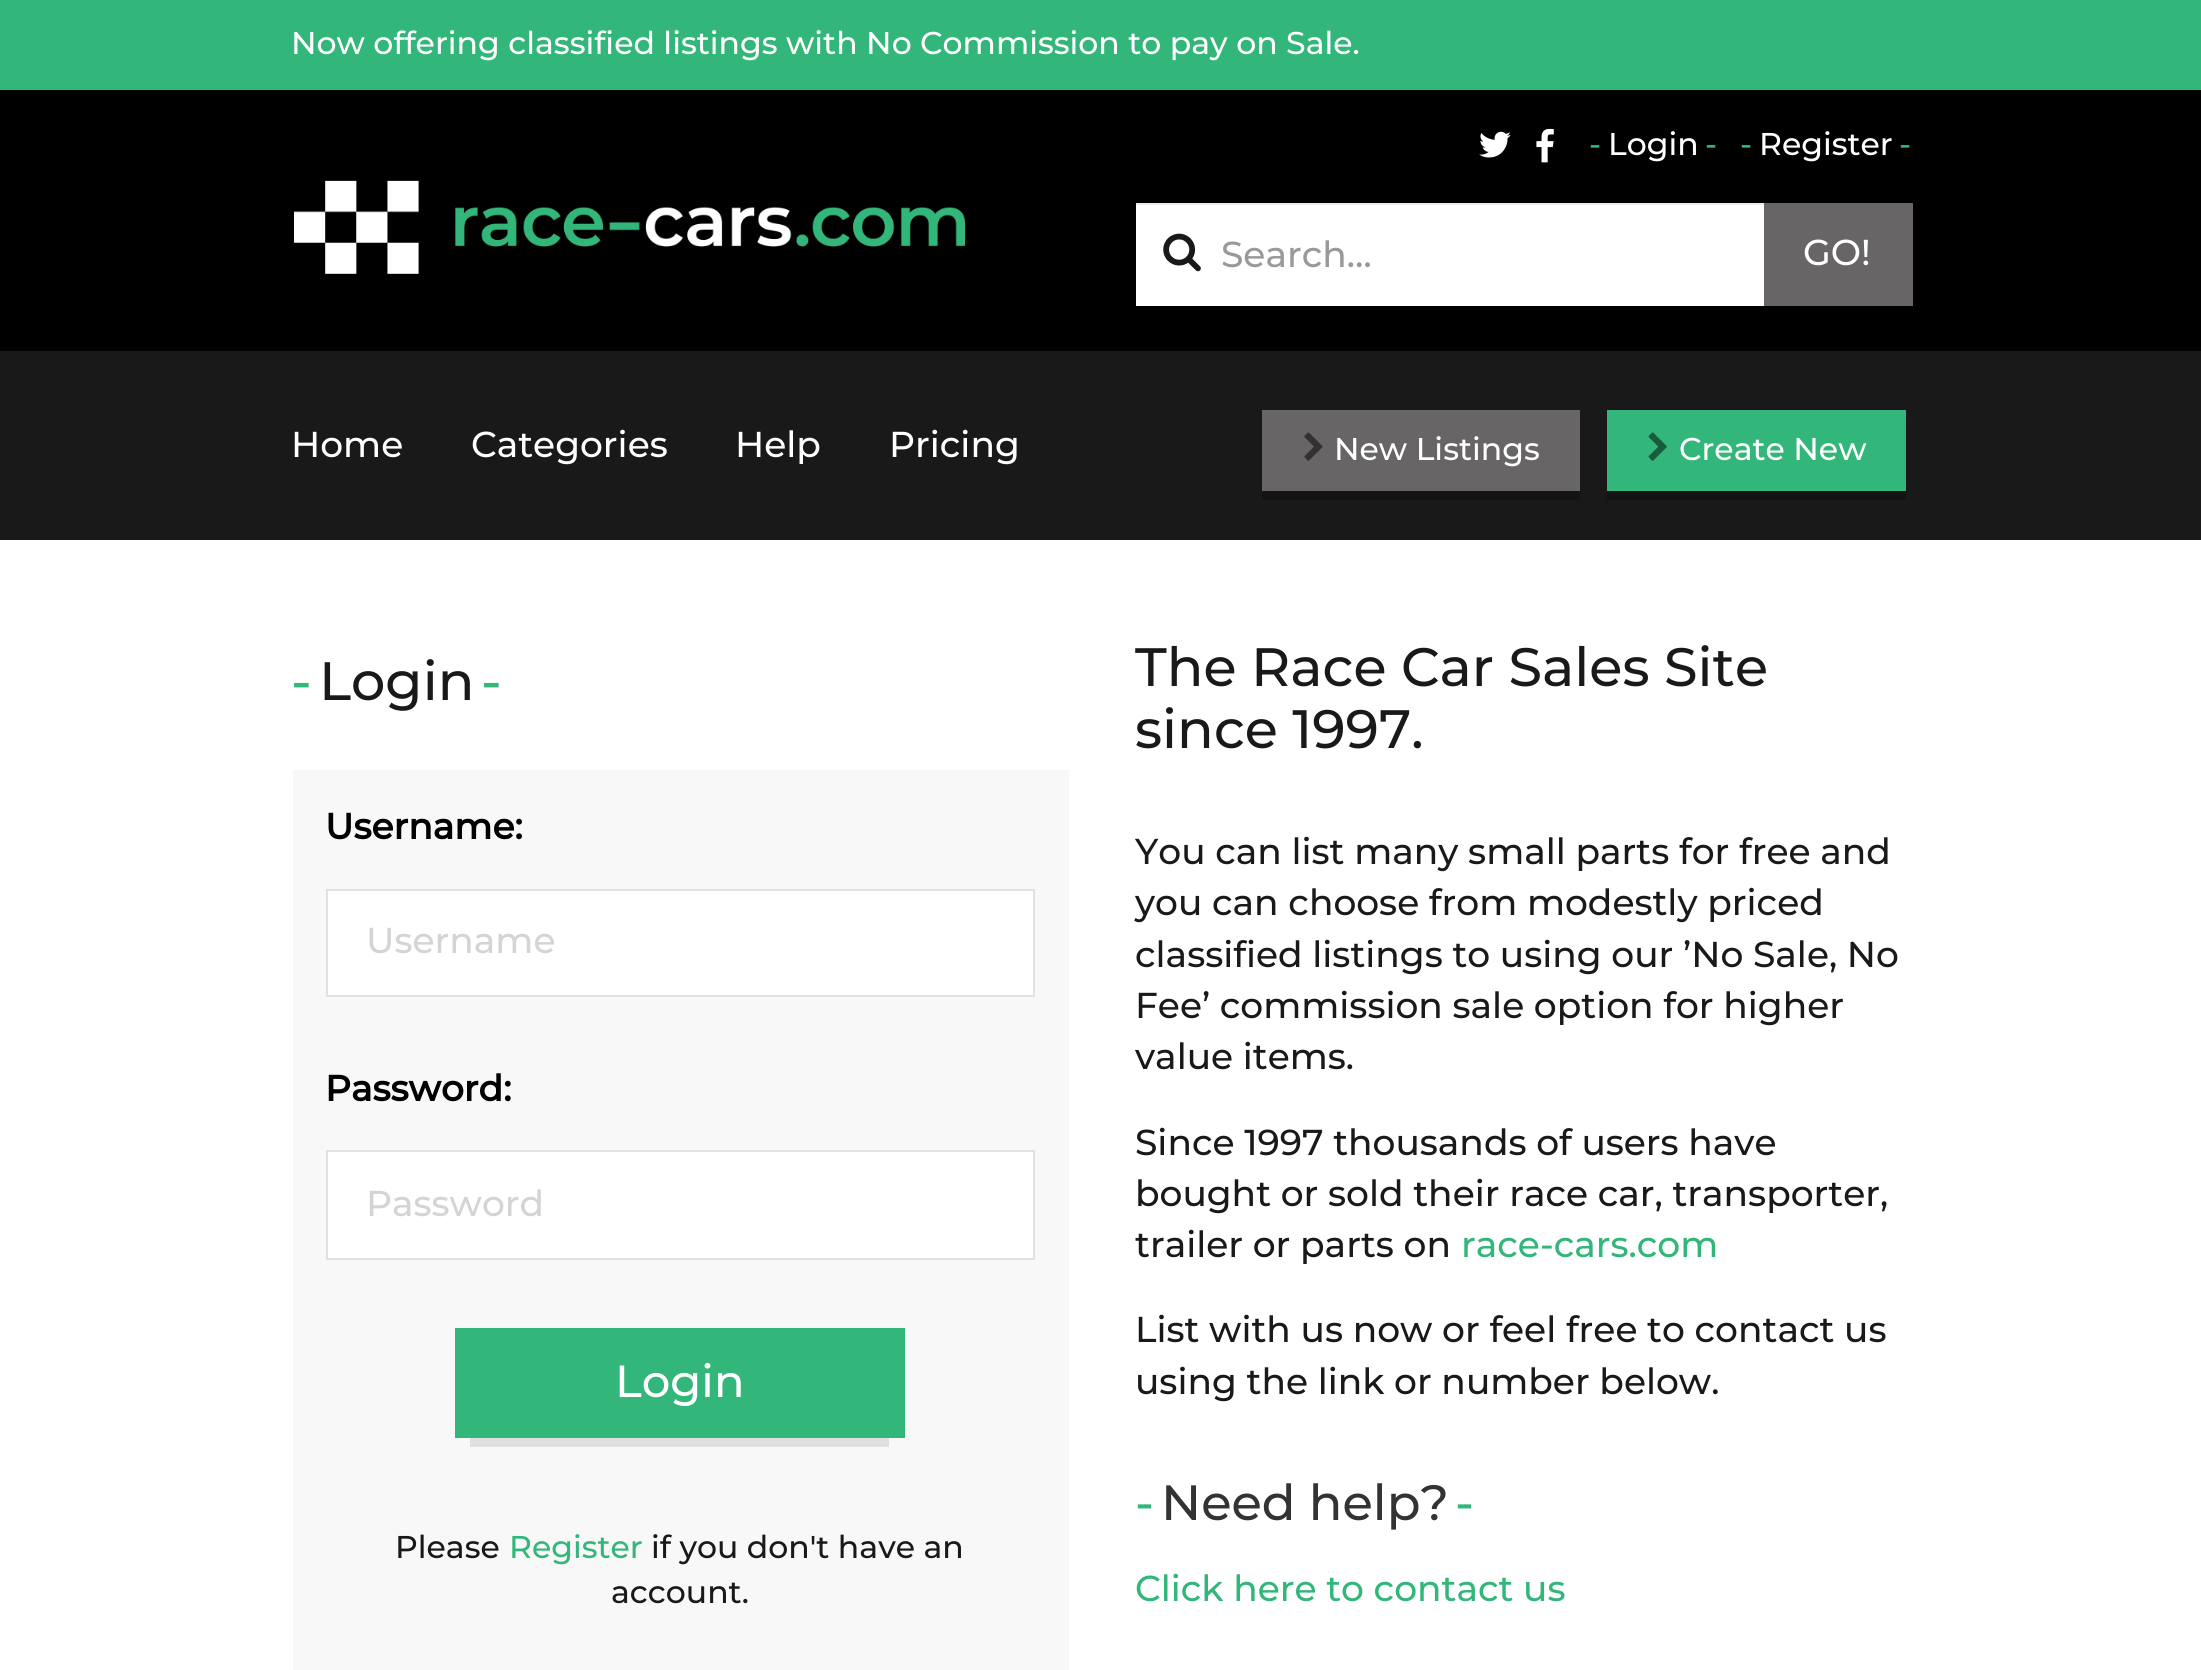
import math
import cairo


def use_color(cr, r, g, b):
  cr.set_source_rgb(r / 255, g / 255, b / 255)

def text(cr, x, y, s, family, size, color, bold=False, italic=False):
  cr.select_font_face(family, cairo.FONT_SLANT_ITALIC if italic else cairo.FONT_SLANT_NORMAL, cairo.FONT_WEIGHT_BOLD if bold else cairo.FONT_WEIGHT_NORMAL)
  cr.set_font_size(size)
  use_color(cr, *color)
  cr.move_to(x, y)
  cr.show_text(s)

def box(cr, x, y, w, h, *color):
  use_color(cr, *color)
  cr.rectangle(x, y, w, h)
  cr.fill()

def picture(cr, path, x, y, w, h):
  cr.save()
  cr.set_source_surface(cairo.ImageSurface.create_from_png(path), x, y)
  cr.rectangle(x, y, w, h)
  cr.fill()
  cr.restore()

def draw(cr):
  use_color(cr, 255, 255, 255)
  cr.paint()
  box(cr, 0, 0, 2201, 90, 51, 182, 122)
  box(cr, 0, 90, 2201, 261, 0, 0, 0)
  picture(cr, "img_01.png", 1479, 131, 32, 27)
  picture(cr, "img_02.png", 1536, 128, 18, 35)
  picture(cr, "img_03.png", 294, 180, 672, 94)
  box(cr, 1136, 205, 628, 101, 255, 255, 255)
  picture(cr, "img_04.png", 1163, 233, 38, 39)
  box(cr, 1136, 203, 628, 2, 236, 236, 236)
  box(cr, 1764, 203, 149, 103, 103, 101, 101)
  box(cr, 0, 351, 2201, 189, 25, 25, 25)
  use_color(cr, 20, 20, 20)
  cr.new_path()
  cr.move_to(1262, 419)
  cr.line_to(1262, 500)
  cr.line_to(1580, 500)
  cr.line_to(1580, 419)
  cr.line_to(1580, 490)
  cr.line_to(1262, 490)
  cr.close_path()
  cr.fill()
  box(cr, 1262, 410, 318, 81, 103, 101, 101)
  picture(cr, "img_05.png", 1304, 432, 19, 29)
  use_color(cr, 20, 20, 20)
  cr.new_path()
  cr.move_to(1607, 490)
  cr.line_to(1607, 500)
  cr.line_to(1906, 500)
  cr.line_to(1906, 419)
  cr.line_to(1906, 490)
  cr.close_path()
  cr.fill()
  box(cr, 1607, 410, 299, 81, 51, 182, 122)
  picture(cr, "img_06.png", 1648, 432, 19, 29)
  box(cr, 293, 770, 776, 900, 248, 248, 248)
  use_color(cr, 255, 255, 255)
  cr.rectangle(327, 890, 707, 106)
  cr.fill_preserve()
  use_color(cr, 224, 225, 225)
  cr.stroke()
  use_color(cr, 255, 255, 255)
  cr.rectangle(327, 1151, 707, 108)
  cr.fill_preserve()
  use_color(cr, 224, 225, 225)
  cr.stroke()
  box(cr, 455, 1328, 450, 110, 51, 182, 122)
  box(cr, 470, 1438, 419, 9, 224, 224, 224)
  text(cr, 291, 54, "Now offering classified listings with No Commission to pay on Sale.", "Montserrat Thin", 31.5, (255, 255, 255))
  text(cr, 1589, 155, "-", "Montserrat Thin", 31.5, (51, 182, 122))
  text(cr, 1608, 155, "Login", "Montserrat Thin", 31.5, (255, 255, 255))
  text(cr, 1705, 155, "-", "Montserrat Thin", 31.5, (51, 182, 122))
  text(cr, 1740, 155, "-", "Montserrat Thin", 31.5, (51, 182, 122))
  text(cr, 1759, 155, "Register", "Montserrat Thin", 31.5, (255, 255, 255))
  text(cr, 1899, 155, "-", "Montserrat Thin", 31.5, (51, 182, 122))
  text(cr, 1221, 267, "Search…", "Montserrat Thin", 36, (153, 153, 153))
  text(cr, 1803, 265, "GO!", "Montserrat Thin", 36, (255, 255, 255))
  text(cr, 291, 457, "Home", "Montserrat Thin", 36, (255, 255, 255))
  text(cr, 471, 457, "Categories", "Montserrat Thin", 36, (255, 255, 255))
  text(cr, 735, 457, "Help", "Montserrat Thin", 36, (255, 255, 255))
  text(cr, 889, 457, "Pricing", "Montserrat Thin", 36, (255, 255, 255))
  text(cr, 1334, 460, "New Listings", "Montserrat Thin", 31.5, (255, 255, 255))
  text(cr, 1679, 460, "Create New", "Montserrat Thin", 31.5, (255, 255, 255))
  text(cr, 325, 839, "Username:", "Montserrat", 36, (0, 0, 0), bold=True)
  text(cr, 366, 953, "Username", "Montserrat Thin", 36, (212, 212, 212))
  text(cr, 325, 1101, "Password:", "Montserrat", 36, (0, 0, 0), bold=True)
  text(cr, 366, 1216, "Password", "Montserrat Thin", 36, (212, 212, 212))
  text(cr, 615, 1397, "Login", "Montserrat Thin", 45, (255, 255, 255))
  text(cr, 395, 1558, "Please", "Montserrat Thin", 31.5, (25, 25, 25))
  text(cr, 509, 1558, "Register", "Montserrat Thin", 31.5, (51, 182, 122))
  text(cr, 651, 1558, "if you don't have an", "Montserrat Thin", 31.5, (25, 25, 25))
  text(cr, 611, 1603, "account.", "Montserrat Thin", 31.5, (25, 25, 25))
  text(cr, 1135, 686, "The Race Car Sales Site", "Montserrat Thin", 54, (25, 25, 25))
  text(cr, 1135, 748, "since 1997.", "Montserrat Thin", 54, (25, 25, 25))
  text(cr, 1135, 864, "You can list many small parts for free and", "Montserrat Thin", 36, (25, 25, 25))
  text(cr, 1135, 915, "you can choose from modestly priced", "Montserrat Thin", 36, (25, 25, 25))
  text(cr, 1135, 967, "classified listings to using our ’No Sale, No", "Montserrat Thin", 36, (25, 25, 25))
  text(cr, 1135, 1018, "Fee’ commission sale option for higher", "Montserrat Thin", 36, (25, 25, 25))
  text(cr, 1135, 1069, "value items.", "Montserrat Thin", 36, (25, 25, 25))
  text(cr, 1135, 1155, "Since 1997 thousands of users have", "Montserrat Thin", 36, (25, 25, 25))
  text(cr, 1135, 1206, "bought or sold their race car, transporter,", "Montserrat Thin", 36, (25, 25, 25))
  text(cr, 1135, 1257, "trailer or parts on", "Montserrat Thin", 36, (25, 25, 25))
  text(cr, 1461, 1257, "race-cars.com", "Montserrat Thin", 36, (51, 182, 122))
  text(cr, 1135, 1342, "List with us now or feel free to contact us", "Montserrat Thin", 36, (25, 25, 25))
  text(cr, 1135, 1394, "using the link or number below.", "Montserrat Thin", 36, (25, 25, 25))
  text(cr, 1135, 1520, "-", "Montserrat Thin", 49.5, (51, 182, 122))
  text(cr, 1161, 1520, "Need help?", "Montserrat Thin", 49.5, (51, 51, 51))
  text(cr, 1455, 1520, "-", "Montserrat Thin", 49.5, (51, 182, 122))
  text(cr, 1135, 1601, "Click here to contact us", "Montserrat Thin", 36, (51, 182, 122))
  text(cr, 291, 700, "-", "Montserrat Thin", 54, (51, 182, 122))
  text(cr, 319, 700, "Login", "Montserrat Thin", 54, (25, 25, 25))
  text(cr, 481, 700, "-", "Montserrat Thin", 54, (51, 182, 122))


surface = cairo.ImageSurface(cairo.FORMAT_RGB24, 2201, 1670)
cr = cairo.Context(surface)
options = cairo.FontOptions()
options.set_hint_metrics(cairo.HINT_METRICS_OFF)
options.set_hint_style(cairo.HINT_STYLE_NONE)
cr.set_font_options(options)
cr.set_miter_limit(4)
draw(cr)
surface.write_to_png("out.png")
